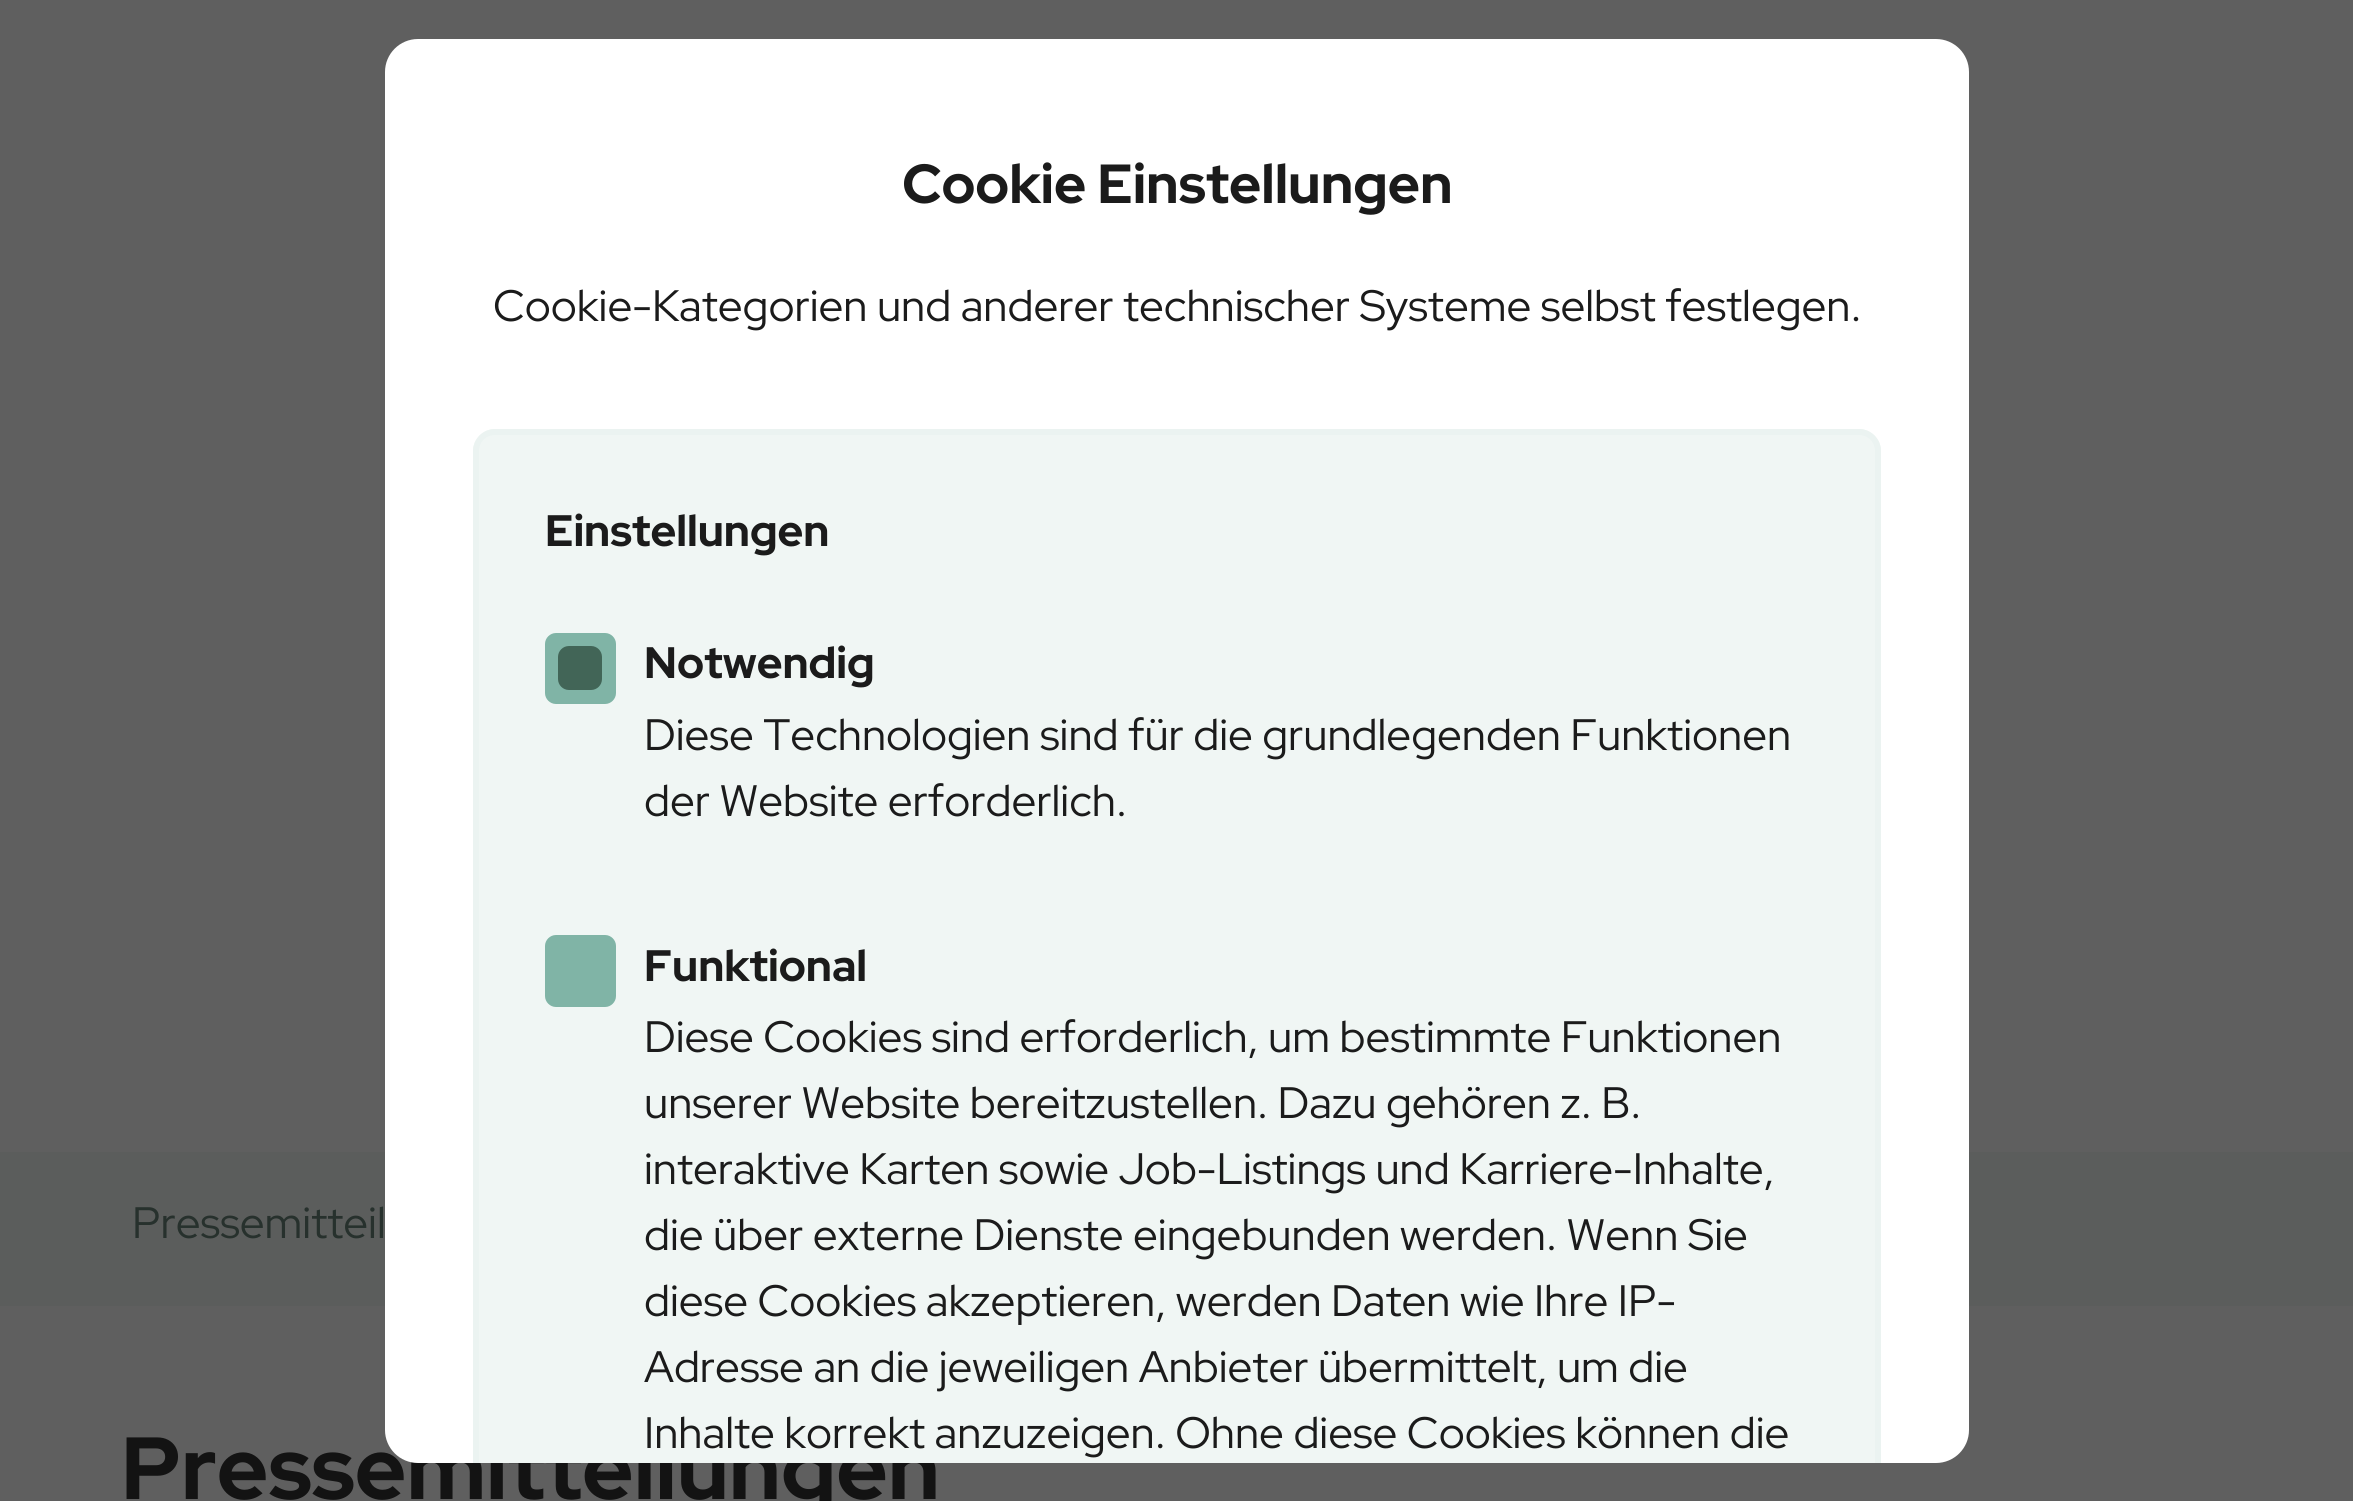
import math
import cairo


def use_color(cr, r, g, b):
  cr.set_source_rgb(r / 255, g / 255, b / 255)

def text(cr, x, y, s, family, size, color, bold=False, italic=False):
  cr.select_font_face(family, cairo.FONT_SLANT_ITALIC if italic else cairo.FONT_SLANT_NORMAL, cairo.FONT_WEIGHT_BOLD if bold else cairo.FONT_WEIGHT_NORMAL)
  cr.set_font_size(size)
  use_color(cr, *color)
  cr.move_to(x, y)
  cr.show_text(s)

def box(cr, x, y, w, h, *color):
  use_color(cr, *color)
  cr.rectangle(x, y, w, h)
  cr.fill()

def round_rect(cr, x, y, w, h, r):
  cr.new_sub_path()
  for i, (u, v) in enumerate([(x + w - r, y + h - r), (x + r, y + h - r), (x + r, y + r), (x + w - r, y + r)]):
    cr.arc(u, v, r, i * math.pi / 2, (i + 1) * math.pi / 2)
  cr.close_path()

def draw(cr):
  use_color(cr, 95, 95, 95)
  cr.paint()
  box(cr, 0, 1152, 2353, 154, 91, 93, 92)
  text(cr, 132, 1238, "Pressemitteil", "Red Hat Display", 44, (39, 49, 45))
  text(cr, 121, 1499, "Pressemitteilungen", "Red Hat Display", 88, (19, 19, 19), bold=True)
  use_color(cr, 255, 255, 255)
  round_rect(cr, 385, 39, 1584, 1424, 33)
  cr.fill()
  use_color(cr, 240, 246, 244)
  cr.new_path()
  cr.move_to(495, 429)
  cr.line_to(1859, 429)
  cr.curve_to(1871, 429, 1881, 439, 1881, 451)
  cr.line_to(1881, 1463)
  cr.line_to(473, 1463)
  cr.line_to(473, 451)
  cr.curve_to(473, 439, 483, 429, 495, 429)
  cr.close_path()
  cr.fill()
  use_color(cr, 235, 243, 241)
  cr.new_path()
  cr.move_to(495, 429)
  cr.curve_to(483, 429, 473, 439, 473, 451)
  cr.line_to(473, 1463)
  cr.line_to(479, 1463)
  cr.line_to(479, 451)
  cr.curve_to(479, 442, 486, 435, 495, 435)
  cr.line_to(1859, 435)
  cr.curve_to(1868, 435, 1875, 442, 1875, 451)
  cr.line_to(1875, 1463)
  cr.line_to(1881, 1463)
  cr.line_to(1881, 451)
  cr.curve_to(1881, 439, 1871, 429, 1859, 429)
  cr.close_path()
  cr.fill()
  use_color(cr, 128, 180, 166)
  cr.new_path()
  cr.move_to(556, 935)
  cr.line_to(605, 935)
  cr.curve_to(611, 935, 616, 940, 616, 946)
  cr.line_to(616, 996)
  cr.curve_to(616, 1002, 611, 1007, 605, 1007)
  cr.line_to(556, 1007)
  cr.curve_to(550, 1007, 545, 1002, 545, 996)
  cr.line_to(545, 946)
  cr.curve_to(545, 940, 550, 935, 556, 935)
  cr.close_path()
  cr.fill()
  text(cr, 644, 981, "Funktional", "Red Hat Display", 44, (27, 27, 27), bold=True)
  use_color(cr, 128, 180, 166)
  cr.new_path()
  cr.move_to(556, 633)
  cr.line_to(605, 633)
  cr.curve_to(611, 633, 616, 638, 616, 644)
  cr.line_to(616, 693)
  cr.curve_to(616, 699, 611, 704, 605, 704)
  cr.line_to(556, 704)
  cr.curve_to(550, 704, 545, 699, 545, 693)
  cr.line_to(545, 644)
  cr.curve_to(545, 638, 550, 633, 556, 633)
  cr.close_path()
  cr.fill()
  use_color(cr, 66, 101, 87)
  round_rect(cr, 558, 646, 44, 44, 11)
  cr.fill()
  text(cr, 644, 678, "Notwendig", "Red Hat Display", 44, (27, 27, 27), bold=True)
  text(cr, 644, 1448, "Inhalte korrekt anzuzeigen. Ohne diese Cookies können die", "Red Hat Display", 44, (27, 27, 27))
  text(cr, 644, 1382, "Adresse an die jeweiligen Anbieter übermittelt, um die", "Red Hat Display", 44, (27, 27, 27))
  text(cr, 644, 1316, "diese Cookies akzeptieren, werden Daten wie Ihre IP-", "Red Hat Display", 44, (27, 27, 27))
  text(cr, 644, 1250, "die über externe Dienste eingebunden werden. Wenn Sie", "Red Hat Display", 44, (27, 27, 27))
  text(cr, 644, 1184, "interaktive Karten sowie Job-Listings und Karriere-Inhalte,", "Red Hat Display", 44, (27, 27, 27))
  text(cr, 644, 1118, "unserer Website bereitzustellen. Dazu gehören z. B.", "Red Hat Display", 44, (27, 27, 27))
  text(cr, 644, 1052, "Diese Cookies sind erforderlich, um bestimmte Funktionen", "Red Hat Display", 44, (27, 27, 27))
  text(cr, 644, 816, "der Website erforderlich.", "Red Hat Display", 44, (27, 27, 27))
  text(cr, 644, 750, "Diese Technologien sind für die grundlegenden Funktionen", "Red Hat Display", 44, (27, 27, 27))
  text(cr, 545, 546, "Einstellungen", "Red Hat Display", 44, (27, 27, 27), bold=True)
  text(cr, 493, 321, "Cookie-Kategorien und anderer technischer Systeme selbst festlegen.", "Red Hat Display", 44, (27, 27, 27))
  text(cr, 902, 203, "Cookie Einstellungen", "Red Hat Display", 55, (27, 27, 27), bold=True)


surface = cairo.ImageSurface(cairo.FORMAT_RGB24, 2353, 1501)
cr = cairo.Context(surface)
options = cairo.FontOptions()
options.set_hint_metrics(cairo.HINT_METRICS_OFF)
options.set_hint_style(cairo.HINT_STYLE_NONE)
cr.set_font_options(options)
cr.set_miter_limit(4)
draw(cr)
surface.write_to_png("out.png")
